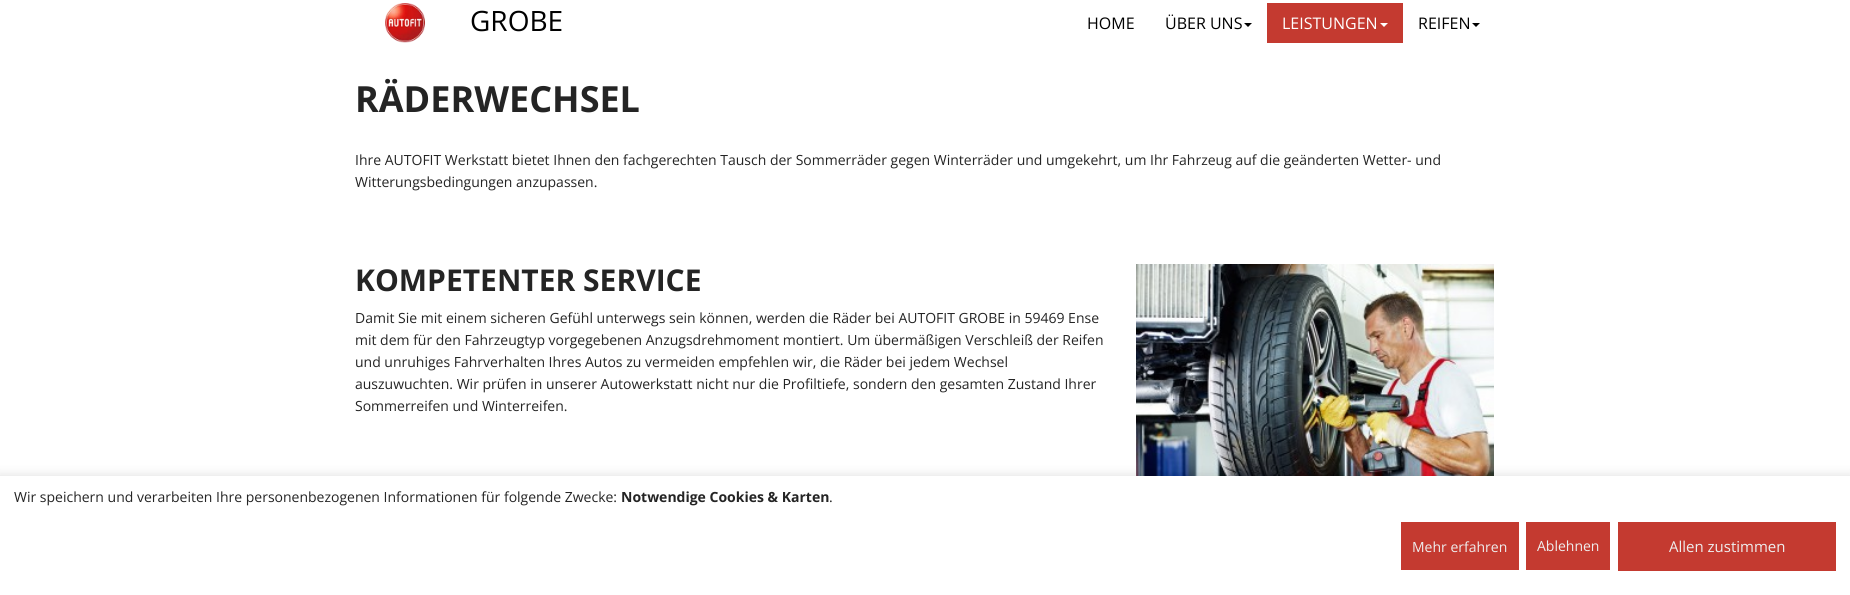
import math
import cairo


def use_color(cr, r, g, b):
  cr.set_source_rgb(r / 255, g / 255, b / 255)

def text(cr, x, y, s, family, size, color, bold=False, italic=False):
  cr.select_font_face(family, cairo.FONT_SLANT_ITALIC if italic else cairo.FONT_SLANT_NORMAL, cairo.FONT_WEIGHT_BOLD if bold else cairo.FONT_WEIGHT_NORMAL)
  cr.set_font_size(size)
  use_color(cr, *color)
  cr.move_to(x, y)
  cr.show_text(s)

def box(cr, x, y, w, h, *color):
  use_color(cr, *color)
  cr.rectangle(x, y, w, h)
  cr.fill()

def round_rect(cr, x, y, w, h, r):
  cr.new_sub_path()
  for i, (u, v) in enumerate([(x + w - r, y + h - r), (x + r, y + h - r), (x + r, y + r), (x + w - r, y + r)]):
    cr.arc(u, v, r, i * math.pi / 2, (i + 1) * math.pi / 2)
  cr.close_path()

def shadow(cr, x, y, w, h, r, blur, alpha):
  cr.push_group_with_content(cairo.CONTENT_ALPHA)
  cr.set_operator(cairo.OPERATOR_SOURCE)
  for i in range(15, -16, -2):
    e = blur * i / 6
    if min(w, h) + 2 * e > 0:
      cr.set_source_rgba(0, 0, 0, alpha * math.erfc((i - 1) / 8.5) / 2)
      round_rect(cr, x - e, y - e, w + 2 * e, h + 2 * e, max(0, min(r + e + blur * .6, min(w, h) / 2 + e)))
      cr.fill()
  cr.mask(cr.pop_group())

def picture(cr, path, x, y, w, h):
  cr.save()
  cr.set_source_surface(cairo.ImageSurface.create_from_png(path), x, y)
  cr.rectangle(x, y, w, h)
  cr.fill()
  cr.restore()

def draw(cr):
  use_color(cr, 255, 255, 255)
  cr.paint()
  picture(cr, "img_01.png", 385, 3, 40, 40)
  use_color(cr, 0, 0, 0)
  cr.new_path()
  cr.move_to(1244, 23)
  cr.line_to(1252, 23)
  cr.line_to(1248, 27)
  cr.close_path()
  cr.fill()
  box(cr, 1267, 3, 136, 40, 196, 58, 48)
  use_color(cr, 255, 255, 255)
  cr.new_path()
  cr.move_to(1380, 23)
  cr.line_to(1388, 23)
  cr.line_to(1384, 27)
  cr.close_path()
  cr.fill()
  use_color(cr, 0, 0, 0)
  cr.new_path()
  cr.move_to(1472, 23)
  cr.line_to(1480, 23)
  cr.line_to(1476, 27)
  cr.close_path()
  cr.fill()
  picture(cr, "img_02.png", 1136, 264, 358, 212)
  use_color(cr, 0, 0, 0)
  shadow(cr, -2, 474, 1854, 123, 0, 5, 0.1)
  box(cr, 0, 476, 1850, 119, 255, 255, 255)
  box(cr, 1401, 522, 118, 48, 196, 58, 48)
  box(cr, 1526, 522, 84, 48, 196, 58, 48)
  box(cr, 1618, 522, 218, 49, 196, 58, 48)
  text(cr, 470, 31, "GROBE", "Open Sans", 28, (0, 0, 0))
  text(cr, 1087, 29, "HOME", "Open Sans", 16, (0, 0, 0))
  text(cr, 1165, 29, "ÜBER UNS", "Open Sans", 16, (0, 0, 0))
  text(cr, 1282, 29, "LEISTUNGEN", "Open Sans", 16, (255, 255, 255))
  text(cr, 1418, 29, "REIFEN", "Open Sans", 16, (0, 0, 0))
  text(cr, 355, 112, "RÄDERWECHSEL", "Open Sans", 36, (36, 36, 36), bold=True)
  text(cr, 355, 165, "Ihre AUTOFIT Werkstatt bietet Ihnen den fachgerechten Tausch der Sommerräder gegen Winterräder und umgekehrt, um Ihr Fahrzeug auf die geänderten Wetter- und", "Open Sans", 14, (36, 36, 36))
  text(cr, 355, 187, "Witterungsbedingungen anzupassen.", "Open Sans", 14, (36, 36, 36))
  text(cr, 355, 291, "KOMPETENTER SERVICE", "Open Sans", 30, (36, 36, 36), bold=True)
  text(cr, 355, 323, "Damit Sie mit einem sicheren Gefühl unterwegs sein können, werden die Räder bei AUTOFIT GROBE in 59469 Ense", "Open Sans", 14, (36, 36, 36))
  text(cr, 355, 345, "mit dem für den Fahrzeugtyp vorgegebenen Anzugsdrehmoment montiert. Um übermäßigen Verschleiß der Reifen", "Open Sans", 14, (36, 36, 36))
  text(cr, 355, 367, "und unruhiges Fahrverhalten Ihres Autos zu vermeiden empfehlen wir, die Räder bei jedem Wechsel", "Open Sans", 14, (36, 36, 36))
  text(cr, 355, 389, "auszuwuchten. Wir prüfen in unserer Autowerkstatt nicht nur die Profiltiefe, sondern den gesamten Zustand Ihrer", "Open Sans", 14, (36, 36, 36))
  text(cr, 355, 411, "Sommerreifen und Winterreifen.", "Open Sans", 14, (36, 36, 36))
  text(cr, 14, 502, "Wir speichern und verarbeiten Ihre personenbezogenen Informationen für folgende Zwecke:", "Open Sans", 14, (36, 36, 36))
  text(cr, 621, 502, "Notwendige Cookies & Karten", "Open Sans", 14, (36, 36, 36), bold=True)
  text(cr, 829, 502, ".", "Open Sans", 14, (36, 36, 36))
  text(cr, 1412, 552, "Mehr erfahren", "Open Sans", 14, (238, 238, 238))
  text(cr, 1537, 551, "Ablehnen", "Open Sans", 14, (238, 238, 238))
  text(cr, 1669, 552, "Allen zustimmen", "Open Sans", 15, (238, 238, 238))


surface = cairo.ImageSurface(cairo.FORMAT_RGB24, 1850, 595)
cr = cairo.Context(surface)
options = cairo.FontOptions()
options.set_hint_metrics(cairo.HINT_METRICS_OFF)
options.set_hint_style(cairo.HINT_STYLE_NONE)
cr.set_font_options(options)
cr.set_miter_limit(4)
draw(cr)
surface.write_to_png("out.png")
